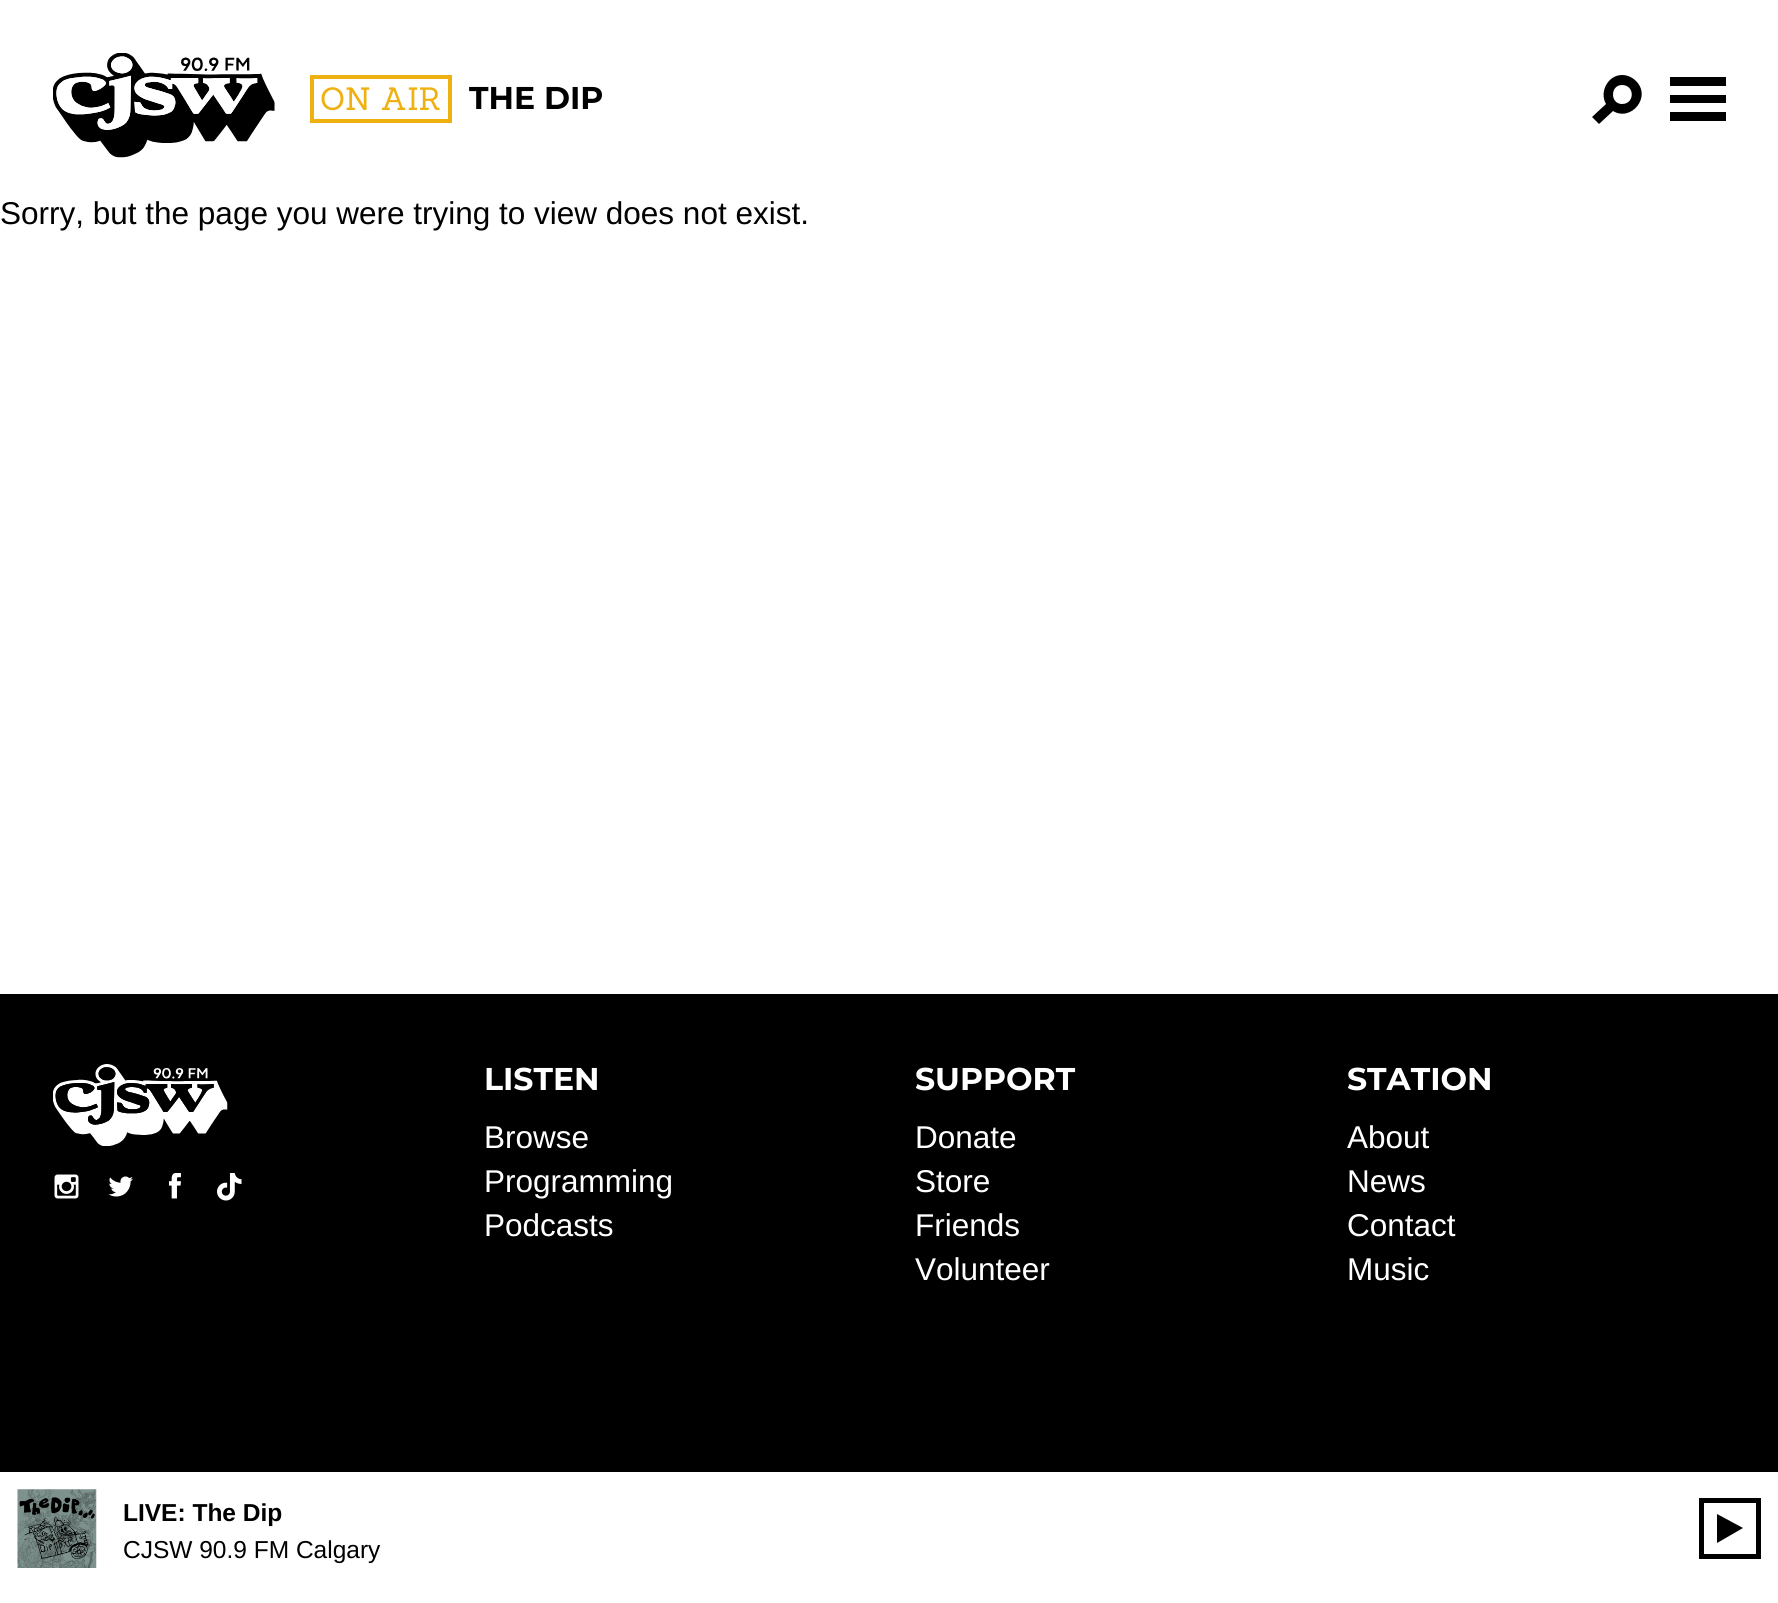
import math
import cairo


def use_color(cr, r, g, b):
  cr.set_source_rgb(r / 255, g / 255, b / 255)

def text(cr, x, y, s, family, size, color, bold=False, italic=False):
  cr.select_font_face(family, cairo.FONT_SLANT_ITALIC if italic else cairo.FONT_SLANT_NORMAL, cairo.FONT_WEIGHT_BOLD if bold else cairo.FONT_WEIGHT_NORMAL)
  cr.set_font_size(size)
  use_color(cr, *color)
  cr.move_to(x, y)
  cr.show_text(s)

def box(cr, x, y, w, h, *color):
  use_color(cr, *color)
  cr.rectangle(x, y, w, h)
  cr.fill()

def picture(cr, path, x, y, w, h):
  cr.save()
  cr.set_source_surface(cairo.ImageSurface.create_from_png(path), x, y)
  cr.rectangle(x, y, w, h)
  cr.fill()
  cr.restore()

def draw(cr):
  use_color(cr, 0, 0, 0)
  cr.paint()
  box(cr, 0, 0, 1778, 994, 255, 255, 255)
  picture(cr, "img_01.png", 53, 53, 222, 105)
  cr.rectangle(312, 77, 138, 44)
  use_color(cr, 238, 177, 17)
  cr.set_line_width(4)
  cr.stroke()
  use_color(cr, 0, 0, 0)
  cr.new_path()
  cr.move_to(1622, 75)
  cr.curve_to(1608, 75, 1599, 92, 1606, 104)
  cr.line_to(1592, 117)
  cr.line_to(1599, 124)
  cr.line_to(1613, 111)
  cr.curve_to(1631, 122, 1652, 97, 1636, 81)
  cr.curve_to(1632, 77, 1627, 75, 1622, 75)
  cr.close_path()
  cr.move_to(1622, 104)
  cr.curve_to(1610, 104, 1610, 85, 1622, 85)
  cr.curve_to(1635, 85, 1635, 104, 1622, 104)
  cr.close_path()
  cr.fill()
  box(cr, 1670, 77, 56, 9, 0, 0, 0)
  box(cr, 1670, 95, 56, 8, 0, 0, 0)
  box(cr, 1670, 112, 56, 9, 0, 0, 0)
  picture(cr, "img_02.png", 53, 1064, 175, 82)
  picture(cr, "img_03.png", 54, 1174, 25, 25)
  picture(cr, "img_04.png", 108, 1176, 25, 21)
  picture(cr, "img_05.png", 169, 1173, 12, 26)
  picture(cr, "img_06.png", 217, 1173, 25, 28)
  box(cr, 0, 1472, 1778, 131, 255, 255, 255)
  picture(cr, "img_07.png", 17, 1489, 80, 79)
  use_color(cr, 1, 1, 1)
  cr.new_path()
  cr.move_to(1717, 1514)
  cr.line_to(1743, 1528)
  cr.line_to(1717, 1543)
  cr.close_path()
  cr.fill()
  cr.rectangle(1701.5, 1500.5, 57, 56)
  use_color(cr, 0, 0, 0)
  cr.set_line_width(5)
  cr.stroke()
  text(cr, 320, 110, "ON AIR", "Sanchez", 31.5, (238, 177, 17))
  text(cr, 469, 109, "THE DIP", "Montserrat", 31.5, (0, 0, 0), bold=True)
  text(cr, 0, 224, "Sorry, but the page you were trying to view does not exist.", "Arimo", 31.5, (0, 0, 0))
  text(cr, 484, 1090, "LISTEN", "Montserrat", 31.5, (255, 255, 255), bold=True)
  text(cr, 484, 1148, "Browse", "Arimo", 31.5, (255, 255, 255))
  text(cr, 484, 1192, "Programming", "Arimo", 31.5, (255, 255, 255))
  text(cr, 484, 1236, "Podcasts", "Arimo", 31.5, (255, 255, 255))
  text(cr, 915, 1090, "SUPPORT", "Montserrat", 31.5, (255, 255, 255), bold=True)
  text(cr, 915, 1148, "Donate", "Arimo", 31.5, (255, 255, 255))
  text(cr, 915, 1192, "Store", "Arimo", 31.5, (255, 255, 255))
  text(cr, 915, 1236, "Friends", "Arimo", 31.5, (255, 255, 255))
  text(cr, 915, 1280, "Volunteer", "Arimo", 31.5, (255, 255, 255))
  text(cr, 1347, 1090, "STATION", "Montserrat", 31.5, (255, 255, 255), bold=True)
  text(cr, 1347, 1148, "About", "Arimo", 31.5, (255, 255, 255))
  text(cr, 1347, 1192, "News", "Arimo", 31.5, (255, 255, 255))
  text(cr, 1347, 1236, "Contact", "Arimo", 31.5, (255, 255, 255))
  text(cr, 1347, 1280, "Music", "Arimo", 31.5, (255, 255, 255))
  text(cr, 123, 1521, "LIVE: The Dip", "Arimo", 24.5, (0, 0, 0), bold=True)
  text(cr, 123, 1558, "CJSW 90.9 FM Calgary", "Arimo", 24.5, (0, 0, 0))


surface = cairo.ImageSurface(cairo.FORMAT_RGB24, 1778, 1603)
cr = cairo.Context(surface)
options = cairo.FontOptions()
options.set_hint_metrics(cairo.HINT_METRICS_OFF)
options.set_hint_style(cairo.HINT_STYLE_NONE)
cr.set_font_options(options)
cr.set_miter_limit(4)
draw(cr)
surface.write_to_png("out.png")
